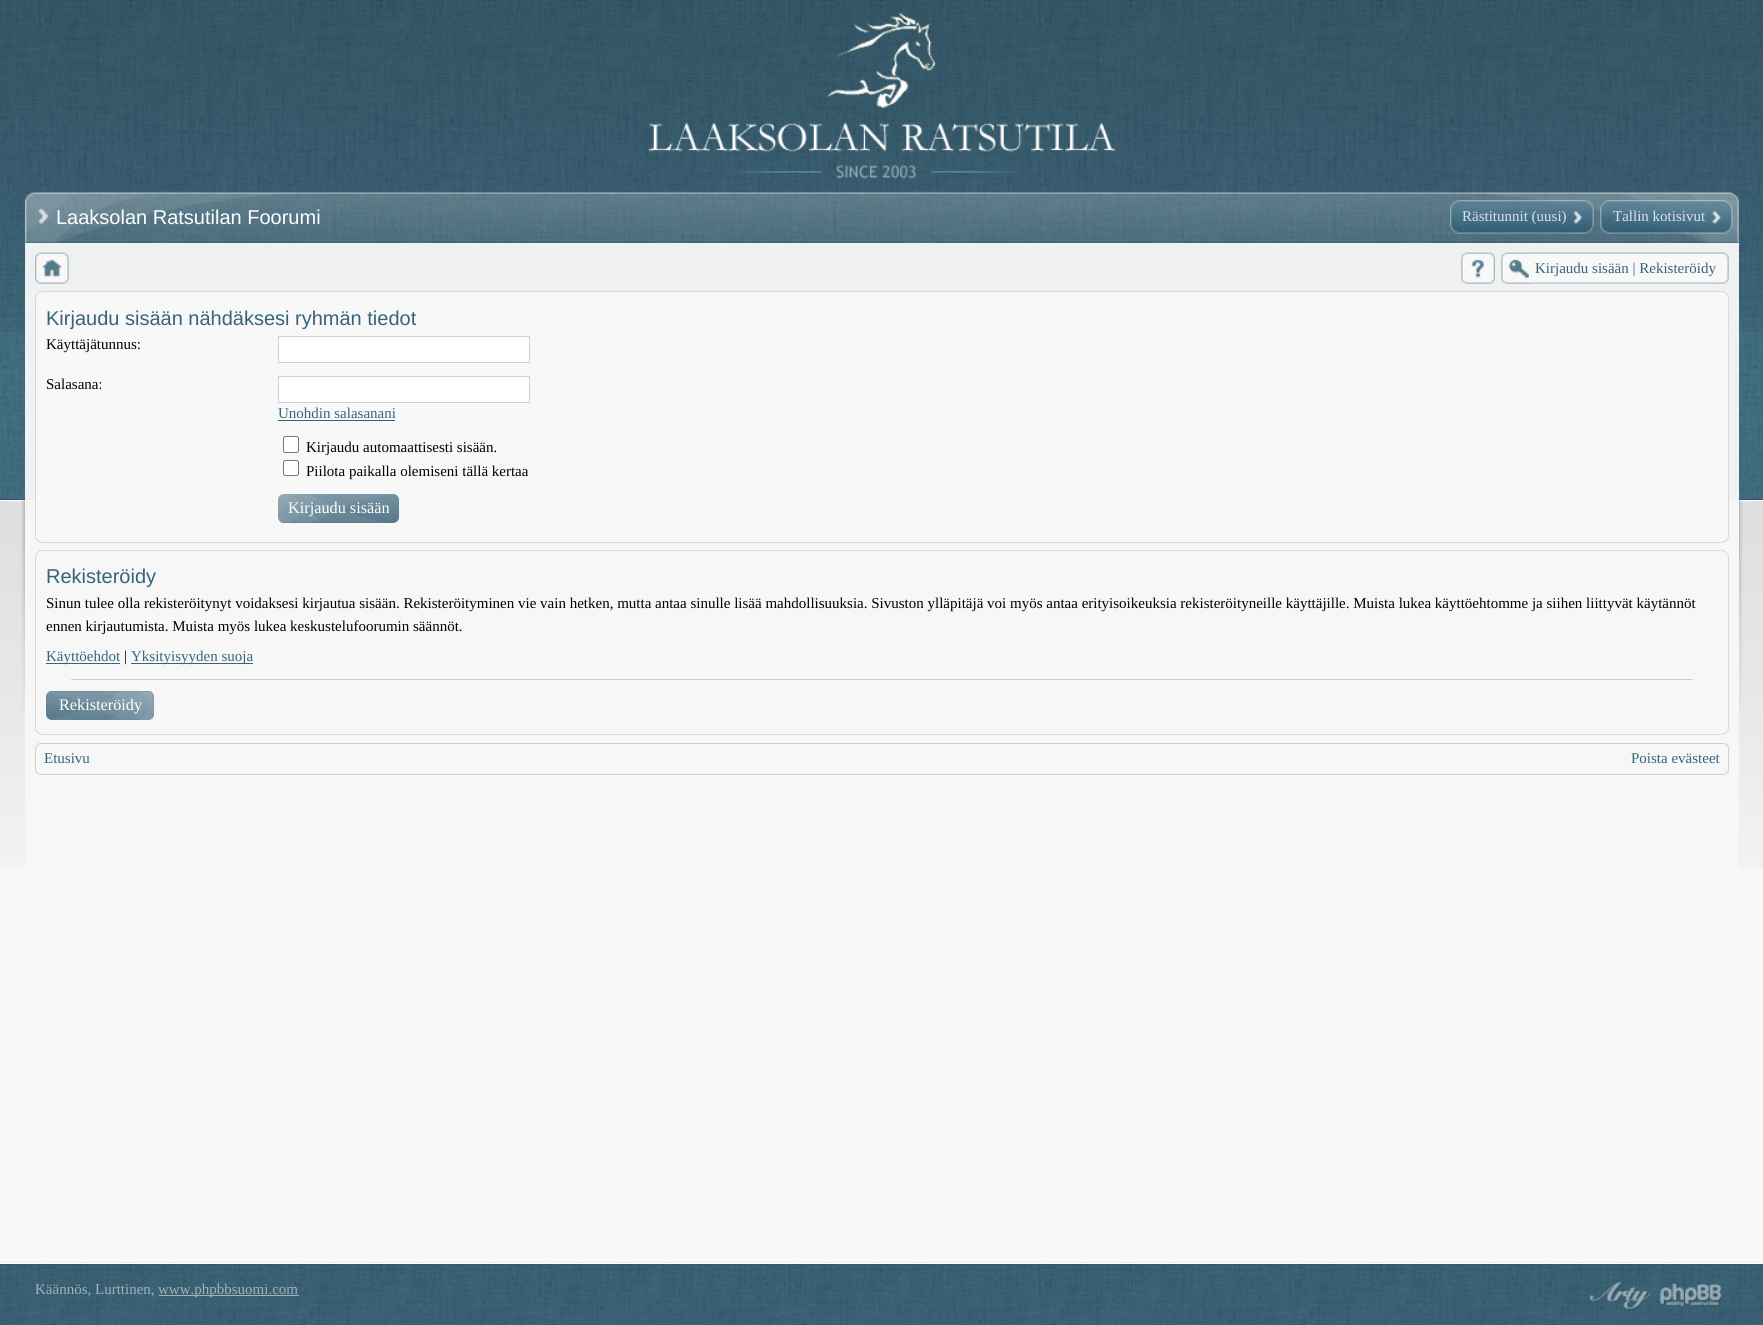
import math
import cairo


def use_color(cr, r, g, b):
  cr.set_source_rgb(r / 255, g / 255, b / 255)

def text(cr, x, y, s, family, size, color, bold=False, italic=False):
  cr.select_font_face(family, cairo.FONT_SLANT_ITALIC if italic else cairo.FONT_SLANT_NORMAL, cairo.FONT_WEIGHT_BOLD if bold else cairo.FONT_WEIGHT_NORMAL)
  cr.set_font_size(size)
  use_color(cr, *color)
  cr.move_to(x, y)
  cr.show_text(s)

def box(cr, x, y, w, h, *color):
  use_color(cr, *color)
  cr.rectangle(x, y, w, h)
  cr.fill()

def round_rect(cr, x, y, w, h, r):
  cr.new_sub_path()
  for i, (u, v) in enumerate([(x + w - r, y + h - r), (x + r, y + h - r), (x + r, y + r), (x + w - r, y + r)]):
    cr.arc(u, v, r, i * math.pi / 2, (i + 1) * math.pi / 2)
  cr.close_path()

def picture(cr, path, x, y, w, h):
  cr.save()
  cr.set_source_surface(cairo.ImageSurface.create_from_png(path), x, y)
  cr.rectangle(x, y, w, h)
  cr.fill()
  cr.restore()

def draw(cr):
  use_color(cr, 248, 248, 248)
  cr.paint()
  box(cr, 0, 0, 1763, 499, 53, 100, 123)
  picture(cr, "img_01.png", 0, 0, 1763, 499)
  box(cr, 0, 499, 1763, 1, 54, 88, 105)
  picture(cr, "img_02.png", 0, 0, 1763, 333)
  picture(cr, "img_03.png", 0, 0, 1763, 331)
  picture(cr, "img_04.png", 0, 501, 1763, 368)
  box(cr, 0, 500, 1763, 1, 255, 255, 255)
  picture(cr, "img_05.png", 21, 500, 4, 212)
  picture(cr, "img_06.png", 1738, 500, 5, 205)
  picture(cr, "img_07.png", 648, 12, 467, 167)
  picture(cr, "img_08.png", 325, 192, 1114, 51)
  picture(cr, "img_10.png", 1438, 192, 301, 51)
  picture(cr, "img_11.png", 38, 208, 11, 16)
  picture(cr, "img_12.png", 1462, 200, 107, 34)
  picture(cr, "img_14.png", 1568, 200, 26, 34)
  picture(cr, "img_15.png", 1612, 200, 96, 34)
  picture(cr, "img_16.png", 1600, 200, 13, 34)
  picture(cr, "img_17.png", 1707, 200, 26, 34)
  cr.set_source_rgba(0.973, 0.973, 0.973, 0.95)
  cr.rectangle(25, 243, 1714, 626)
  cr.fill()
  picture(cr, "img_18.png", 35, 252, 34, 32)
  picture(cr, "img_19.png", 1461, 252, 34, 32)
  picture(cr, "img_20.png", 1532, 252, 185, 32)
  picture(cr, "img_21.png", 1501, 252, 32, 32)
  picture(cr, "img_22.png", 1716, 252, 13, 32)
  use_color(cr, 248, 248, 248)
  round_rect(cr, 35.5, 291.5, 1693, 251, 7.5)
  cr.fill_preserve()
  use_color(cr, 216, 216, 216)
  cr.set_line_width(1)
  cr.stroke()
  use_color(cr, 255, 255, 255)
  cr.rectangle(278.5, 336.5, 251, 26)
  cr.fill_preserve()
  use_color(cr, 208, 208, 208)
  cr.stroke()
  use_color(cr, 255, 255, 255)
  cr.rectangle(278.5, 376.5, 251, 26)
  cr.fill_preserve()
  use_color(cr, 208, 208, 208)
  cr.stroke()
  box(cr, 278, 420, 117, 1, 53, 100, 123)
  use_color(cr, 255, 255, 255)
  round_rect(cr, 283.5, 436.5, 15, 16, 2)
  cr.fill_preserve()
  use_color(cr, 118, 118, 118)
  cr.stroke()
  use_color(cr, 255, 255, 255)
  round_rect(cr, 283.5, 460.5, 15, 15, 2)
  cr.fill_preserve()
  use_color(cr, 118, 118, 118)
  cr.stroke()
  use_color(cr, 87, 122, 140)
  round_rect(cr, 278, 494, 121, 29, 6)
  cr.fill()
  picture(cr, "img_23.png", 278, 494, 121, 29)
  round_rect(cr, 35.5, 550.5, 1693, 184, 7.5)
  use_color(cr, 216, 216, 216)
  cr.stroke()
  box(cr, 46, 663, 74, 1, 53, 100, 123)
  box(cr, 131, 663, 122, 1, 53, 100, 123)
  box(cr, 71, 679, 1622, 1, 208, 208, 208)
  use_color(cr, 87, 122, 140)
  round_rect(cr, 46, 691, 108, 29, 6)
  cr.fill()
  picture(cr, "img_24.png", 46, 691, 108, 29)
  round_rect(cr, 35.5, 743.5, 1693, 31, 5.5)
  use_color(cr, 208, 208, 208)
  cr.stroke()
  box(cr, 0, 1265, 1763, 60, 48, 90, 111)
  picture(cr, "img_25.png", 0, 1262, 1763, 63)
  box(cr, 0, 1263, 1763, 1, 255, 255, 255)
  box(cr, 0, 1264, 1763, 1, 54, 88, 105)
  box(cr, 159, 1295, 140, 1, 160, 178, 186)
  picture(cr, "img_26.png", 1589, 1281, 62, 29)
  picture(cr, "img_27.png", 1660, 1283, 63, 25)
  text(cr, 56, 224, "Laaksolan Ratsutilan Foorumi", "Liberation Sans", 20, (255, 255, 255))
  picture(cr, "img_09.png", 25, 192, 300, 51)
  text(cr, 1462, 221, "Rästitunnit (uusi)", "Liberation Serif", 15, (218, 227, 231))
  picture(cr, "img_13.png", 1450, 200, 13, 34)
  text(cr, 1613, 221, "Tallin kotisivut", "Liberation Serif", 15, (218, 227, 231))
  text(cr, 1535, 273, "Kirjaudu sisään | Rekisteröidy", "Liberation Serif", 15, (53, 100, 123))
  text(cr, 46, 325, "Kirjaudu sisään nähdäksesi ryhmän tiedot", "Liberation Sans", 20, (53, 100, 123))
  text(cr, 46, 349, "Käyttäjätunnus:", "Liberation Serif", 15, (0, 0, 0))
  text(cr, 46, 389, "Salasana:", "Liberation Serif", 15, (0, 0, 0))
  text(cr, 278, 418, "Unohdin salasanani", "Liberation Serif", 15, (53, 100, 123))
  text(cr, 306, 452, "Kirjaudu automaattisesti sisään.", "Liberation Serif", 15, (0, 0, 0))
  text(cr, 306, 476, "Piilota paikalla olemiseni tällä kertaa", "Liberation Serif", 15, (0, 0, 0))
  text(cr, 288, 513, "Kirjaudu sisään", "Liberation Serif", 16.25, (255, 255, 255))
  text(cr, 46, 583, "Rekisteröidy", "Liberation Sans", 20, (53, 100, 123))
  text(cr, 46, 608, "Sinun tulee olla rekisteröitynyt voidaksesi kirjautua sisään. Rekisteröityminen vie vain hetken, mutta antaa sinulle lisää mahdollisuuksia. Sivuston ylläpitäjä voi myös antaa erityisoikeuksia rekisteröityneille käyttäjille. Muista lukea käyttöehtomme ja siihen liittyvät käytännöt", "Liberation Serif", 15, (0, 0, 0))
  text(cr, 46, 631, "ennen kirjautumista. Muista myös lukea keskustelufoorumin säännöt.", "Liberation Serif", 15, (0, 0, 0))
  text(cr, 46, 661, "Käyttöehdot", "Liberation Serif", 15, (53, 100, 123))
  text(cr, 124, 661, "|", "Liberation Serif", 15, (0, 0, 0))
  text(cr, 131, 661, "Yksityisyyden suoja", "Liberation Serif", 15, (53, 100, 123))
  text(cr, 59, 710, "Rekisteröidy", "Liberation Serif", 16.25, (255, 255, 255))
  text(cr, 44, 763, "Etusivu", "Liberation Serif", 15, (53, 100, 123))
  text(cr, 1631, 763, "Poista evästeet", "Liberation Serif", 15, (53, 100, 123))
  text(cr, 35, 1294, "Käännös, Lurttinen,", "Liberation Serif", 15, (160, 178, 186))
  text(cr, 158, 1294, "www.phpbbsuomi.com", "Liberation Serif", 15, (160, 178, 186))


surface = cairo.ImageSurface(cairo.FORMAT_RGB24, 1763, 1325)
cr = cairo.Context(surface)
options = cairo.FontOptions()
options.set_hint_metrics(cairo.HINT_METRICS_OFF)
options.set_hint_style(cairo.HINT_STYLE_NONE)
cr.set_font_options(options)
cr.set_miter_limit(4)
draw(cr)
surface.write_to_png("out.png")
